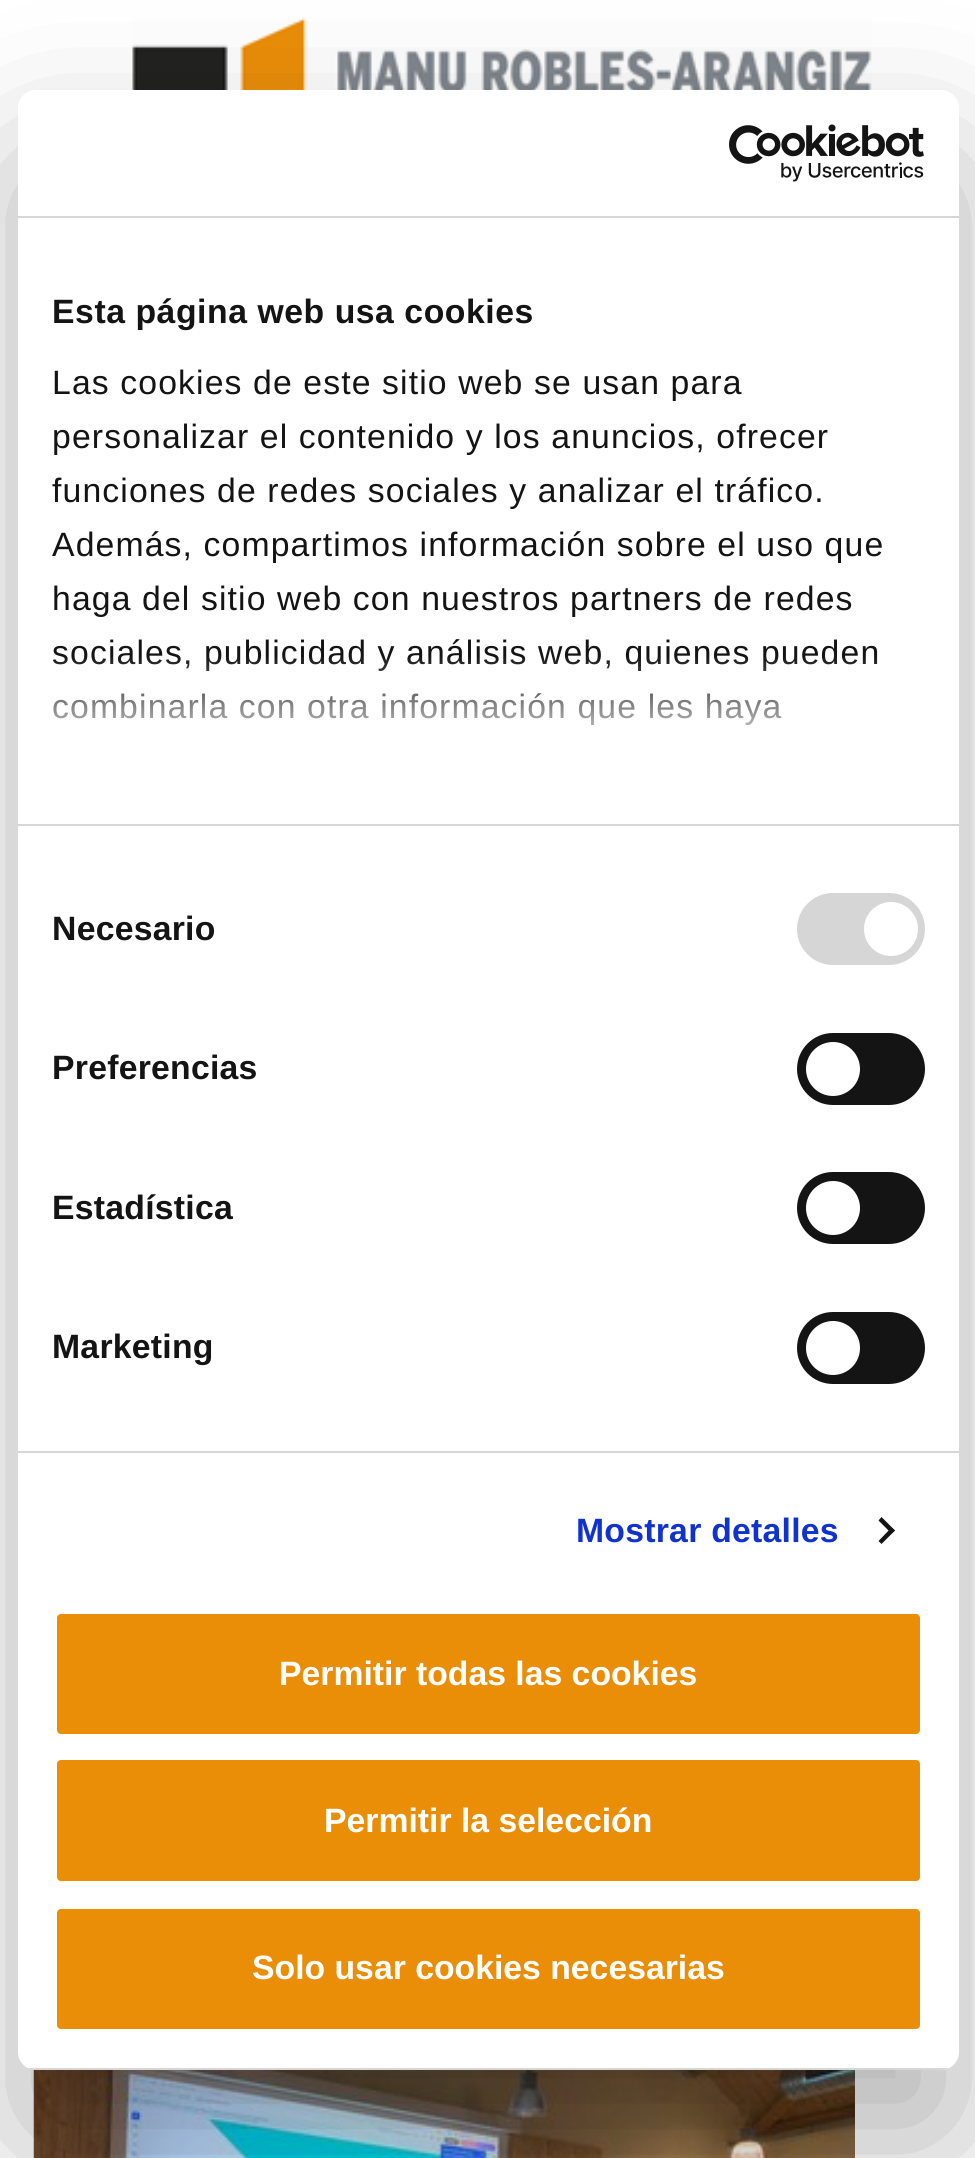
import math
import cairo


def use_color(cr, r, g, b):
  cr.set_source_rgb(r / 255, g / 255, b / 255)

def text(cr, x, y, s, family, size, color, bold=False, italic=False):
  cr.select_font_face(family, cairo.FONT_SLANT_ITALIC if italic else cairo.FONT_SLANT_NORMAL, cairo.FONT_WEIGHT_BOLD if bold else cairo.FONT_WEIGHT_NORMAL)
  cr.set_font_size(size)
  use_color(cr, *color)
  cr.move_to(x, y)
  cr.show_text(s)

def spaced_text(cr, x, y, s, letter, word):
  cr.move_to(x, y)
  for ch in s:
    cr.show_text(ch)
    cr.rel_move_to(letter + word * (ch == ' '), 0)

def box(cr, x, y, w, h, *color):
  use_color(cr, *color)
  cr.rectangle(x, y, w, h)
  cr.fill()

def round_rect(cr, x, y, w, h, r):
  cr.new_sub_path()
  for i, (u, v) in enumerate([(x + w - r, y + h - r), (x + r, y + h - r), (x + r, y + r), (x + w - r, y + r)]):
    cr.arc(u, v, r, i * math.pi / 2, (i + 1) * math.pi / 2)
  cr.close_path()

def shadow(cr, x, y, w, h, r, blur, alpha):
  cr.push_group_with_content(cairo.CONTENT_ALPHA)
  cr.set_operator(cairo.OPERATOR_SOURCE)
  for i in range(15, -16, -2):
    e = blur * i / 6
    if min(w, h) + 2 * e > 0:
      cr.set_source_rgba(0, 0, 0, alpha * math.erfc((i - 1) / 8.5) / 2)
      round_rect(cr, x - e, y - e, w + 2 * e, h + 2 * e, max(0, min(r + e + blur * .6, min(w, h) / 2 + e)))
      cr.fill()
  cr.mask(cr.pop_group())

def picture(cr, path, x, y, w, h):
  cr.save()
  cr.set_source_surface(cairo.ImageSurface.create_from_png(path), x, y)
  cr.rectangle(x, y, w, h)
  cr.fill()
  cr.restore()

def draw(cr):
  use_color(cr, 255, 255, 255)
  cr.paint()
  picture(cr, "img_01.png", 132, 17, 740, 73)
  picture(cr, "img_03.png", 33, 2069, 822, 89)
  use_color(cr, 0, 0, 0)
  shadow(cr, 18, 162, 941, 1980, 18, 76.5, 0.3)
  use_color(cr, 255, 255, 255)
  round_rect(cr, 18, 90, 941, 1980, 18)
  cr.fill()
  box(cr, 18, 216, 941, 2, 214, 214, 214)
  picture(cr, "img_02.png", 729, 124, 195, 58)
  box(cr, 18, 824, 941, 2, 214, 214, 214)
  box(cr, 18, 1451, 941, 2, 214, 214, 214)
  round_rect(cr, 797, 893, 128, 72, 36)
  cr.fill()
  use_color(cr, 255, 255, 255)
  cr.arc(891, 929, 27, 0, 2 * math.pi)
  cr.fill()
  use_color(cr, 20, 20, 20)
  round_rect(cr, 797, 1033, 128, 72, 36)
  cr.fill()
  use_color(cr, 255, 255, 255)
  cr.arc(833, 1069, 27, 0, 2 * math.pi)
  cr.fill()
  use_color(cr, 20, 20, 20)
  round_rect(cr, 797, 1172, 128, 72, 36)
  cr.fill()
  use_color(cr, 255, 255, 255)
  cr.arc(833, 1208, 27, 0, 2 * math.pi)
  cr.fill()
  use_color(cr, 20, 20, 20)
  round_rect(cr, 797, 1312, 128, 72, 36)
  cr.fill()
  use_color(cr, 255, 255, 255)
  cr.arc(833, 1348, 27, 0, 2 * math.pi)
  cr.fill()
  use_color(cr, 20, 20, 20)
  cr.new_path()
  cr.move_to(881.5, 1517)
  cr.line_to(895, 1530.5)
  cr.line_to(891.5, 1533.5)
  cr.line_to(878.5, 1520.5)
  cr.close_path()
  cr.fill()
  cr.new_path()
  cr.move_to(891.5, 1527.5)
  cr.line_to(895, 1530.5)
  cr.line_to(881.5, 1544)
  cr.line_to(878.5, 1541)
  cr.close_path()
  cr.fill()
  cr.save()
  round_rect(cr, 18, 90, 941, 1980, 18)
  cr.clip()
  box(cr, 28, 2068, 921, 2, 214, 214, 214)
  cr.restore()
  use_color(cr, 234, 142, 8)
  round_rect(cr, 54.5, 1611.5, 868, 125, 6.5)
  cr.fill_preserve()
  use_color(cr, 255, 255, 255)
  cr.set_line_width(5)
  cr.stroke()
  use_color(cr, 234, 142, 8)
  round_rect(cr, 54.5, 1757.5, 868, 126, 6.5)
  cr.fill_preserve()
  use_color(cr, 255, 255, 255)
  cr.stroke()
  use_color(cr, 234, 142, 8)
  round_rect(cr, 54.5, 1906.5, 868, 125, 6.5)
  cr.fill_preserve()
  use_color(cr, 255, 255, 255)
  cr.stroke()
  cr.select_font_face("Liberation Sans", cairo.FONT_SLANT_NORMAL, cairo.FONT_WEIGHT_BOLD)
  cr.set_font_size(33.75)
  use_color(cr, 20, 20, 20)
  spaced_text(cr, 52, 323, "Esta página web usa cookies", 0.55, 0)
  cr.select_font_face("Liberation Sans")
  spaced_text(cr, 52, 394, "Las cookies de este sitio web se usan para", 1.12, 0)
  spaced_text(cr, 52, 448, "personalizar el contenido y los anuncios, ofrecer", 1.12, 0)
  spaced_text(cr, 52, 502, "funciones de redes sociales y analizar el tráfico.", 1.12, 0)
  spaced_text(cr, 52, 556, "Además, compartimos información sobre el uso que", 1.12, 0)
  spaced_text(cr, 52, 610, "haga del sitio web con nuestros partners de redes", 1.12, 0)
  spaced_text(cr, 52, 664, "sociales, publicidad y análisis web, quienes pueden", 1.12, 0)
  spaced_text(cr, 52, 718, "combinarla con otra información que les haya", 1.12, 0)
  gradient = cairo.LinearGradient(474, 824, 474, 655)
  gradient.add_color_stop_rgba(0, 1, 1, 1, 1)
  gradient.add_color_stop_rgba(0.5, 1, 1, 1, 0.8)
  gradient.add_color_stop_rgba(1, 1, 1, 1, 0)
  cr.set_source(gradient)
  cr.rectangle(53, 657, 824, 68)
  cr.fill()
  cr.select_font_face("Liberation Sans", cairo.FONT_SLANT_NORMAL, cairo.FONT_WEIGHT_BOLD)
  use_color(cr, 20, 20, 20)
  spaced_text(cr, 52, 940, "Necesario", 0.25, 0)
  spaced_text(cr, 52, 1079, "Preferencias", 0.25, 0)
  spaced_text(cr, 52, 1219, "Estadística", 0.25, 0)
  spaced_text(cr, 52, 1358, "Marketing", 0.25, 0)
  use_color(cr, 16, 50, 207)
  spaced_text(cr, 576, 1542, "Mostrar detalles", 0.25, 0)
  text(cr, 279, 1685, "Permitir todas las cookies", "Liberation Sans", 33.75, (255, 255, 255), bold=True)
  text(cr, 324, 1832, "Permitir la selección", "Liberation Sans", 33.75, (255, 255, 255), bold=True)
  text(cr, 252, 1979, "Solo usar cookies necesarias", "Liberation Sans", 33.75, (255, 255, 255), bold=True)


surface = cairo.ImageSurface(cairo.FORMAT_RGB24, 975, 2158)
cr = cairo.Context(surface)
options = cairo.FontOptions()
options.set_hint_metrics(cairo.HINT_METRICS_OFF)
options.set_hint_style(cairo.HINT_STYLE_NONE)
cr.set_font_options(options)
cr.set_miter_limit(4)
draw(cr)
surface.write_to_png("out.png")
